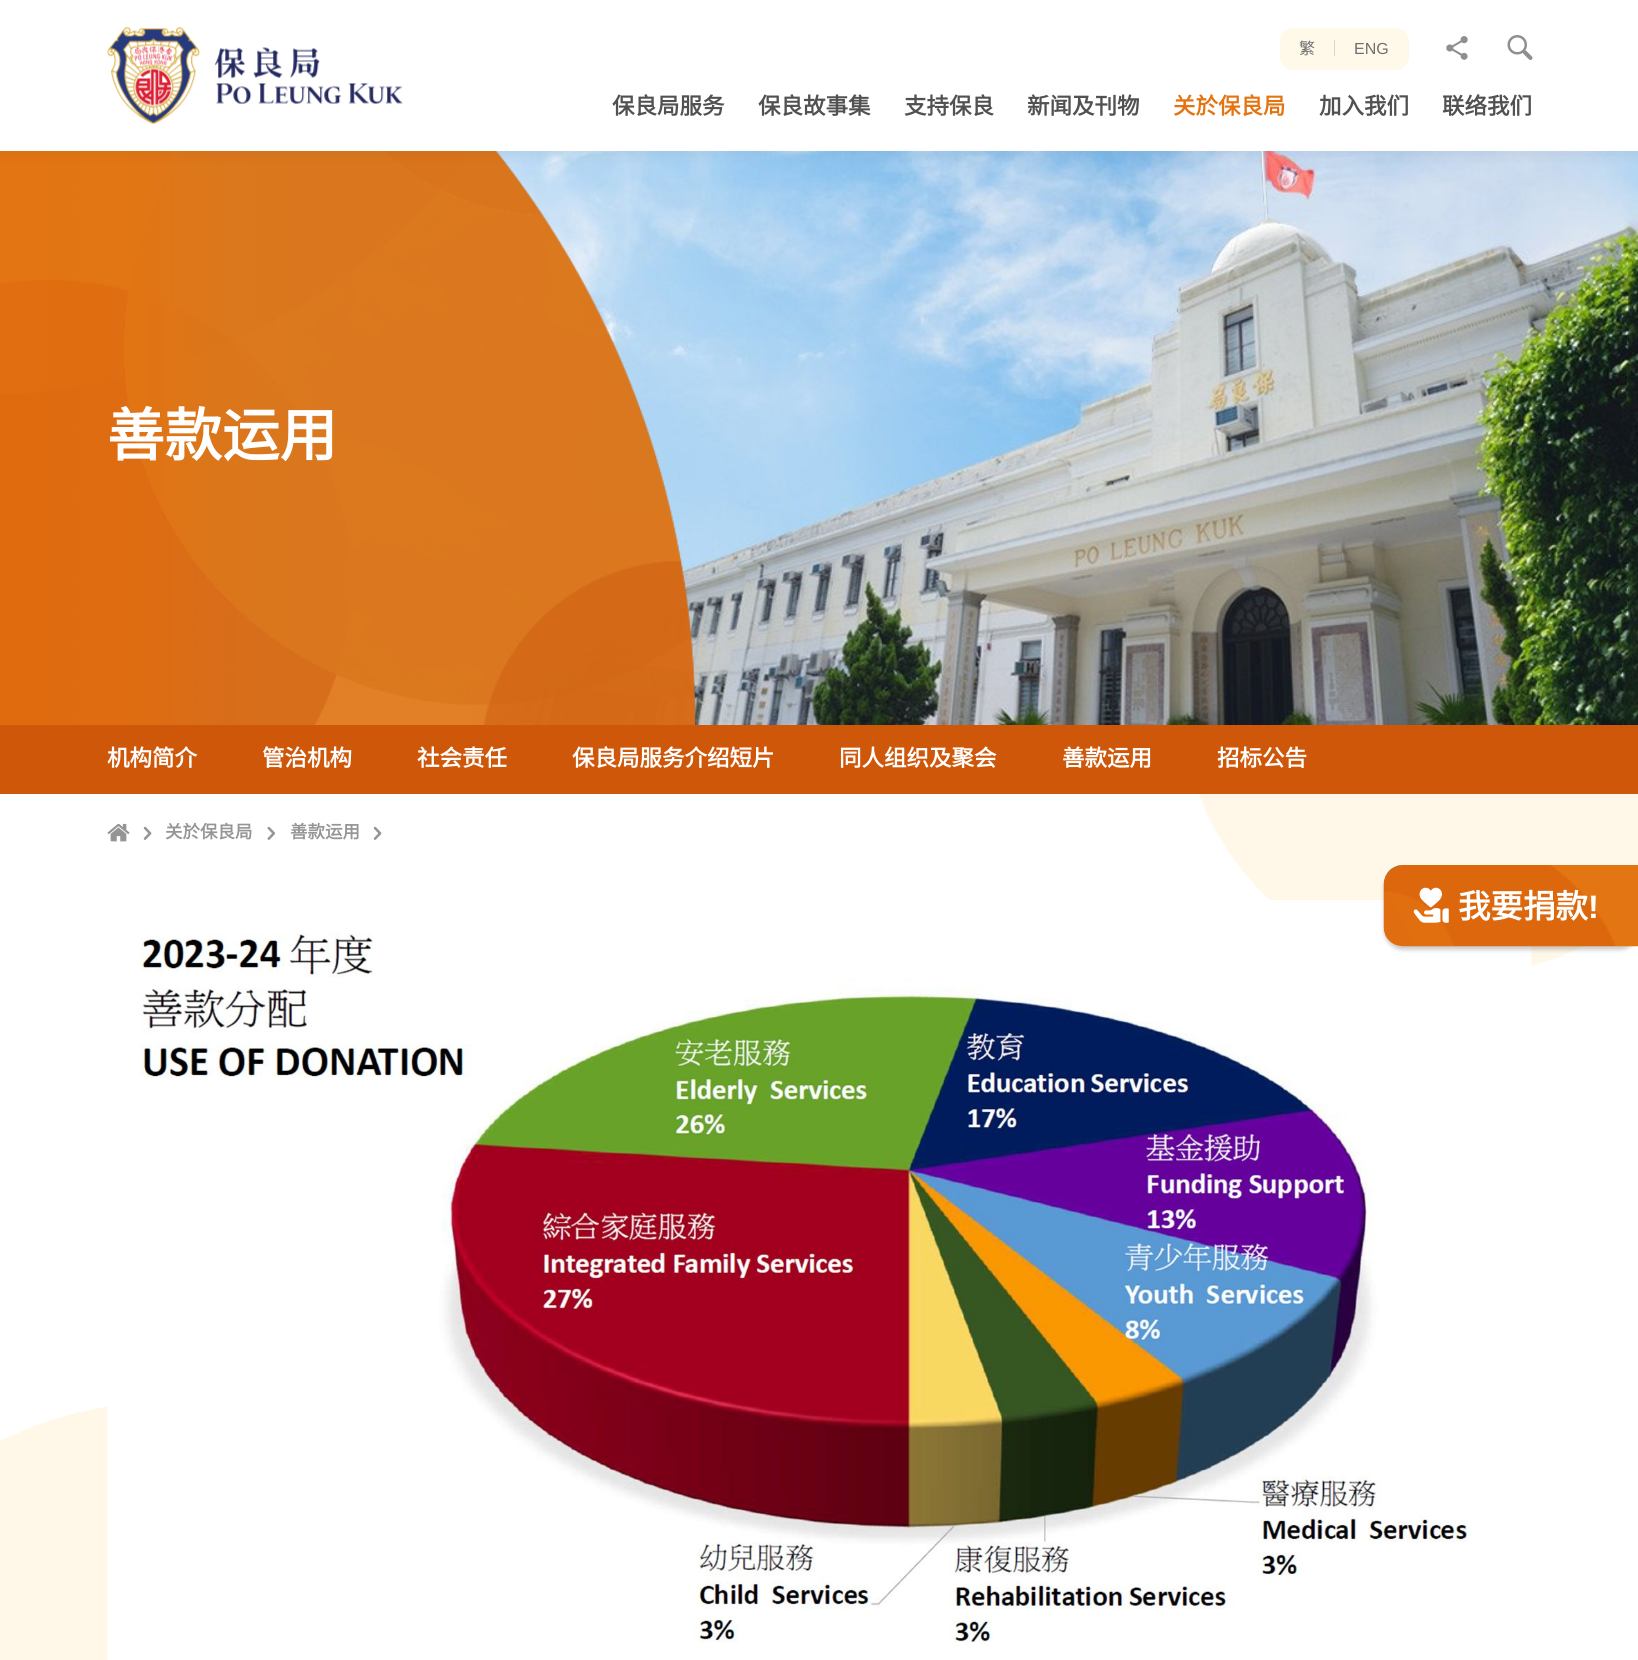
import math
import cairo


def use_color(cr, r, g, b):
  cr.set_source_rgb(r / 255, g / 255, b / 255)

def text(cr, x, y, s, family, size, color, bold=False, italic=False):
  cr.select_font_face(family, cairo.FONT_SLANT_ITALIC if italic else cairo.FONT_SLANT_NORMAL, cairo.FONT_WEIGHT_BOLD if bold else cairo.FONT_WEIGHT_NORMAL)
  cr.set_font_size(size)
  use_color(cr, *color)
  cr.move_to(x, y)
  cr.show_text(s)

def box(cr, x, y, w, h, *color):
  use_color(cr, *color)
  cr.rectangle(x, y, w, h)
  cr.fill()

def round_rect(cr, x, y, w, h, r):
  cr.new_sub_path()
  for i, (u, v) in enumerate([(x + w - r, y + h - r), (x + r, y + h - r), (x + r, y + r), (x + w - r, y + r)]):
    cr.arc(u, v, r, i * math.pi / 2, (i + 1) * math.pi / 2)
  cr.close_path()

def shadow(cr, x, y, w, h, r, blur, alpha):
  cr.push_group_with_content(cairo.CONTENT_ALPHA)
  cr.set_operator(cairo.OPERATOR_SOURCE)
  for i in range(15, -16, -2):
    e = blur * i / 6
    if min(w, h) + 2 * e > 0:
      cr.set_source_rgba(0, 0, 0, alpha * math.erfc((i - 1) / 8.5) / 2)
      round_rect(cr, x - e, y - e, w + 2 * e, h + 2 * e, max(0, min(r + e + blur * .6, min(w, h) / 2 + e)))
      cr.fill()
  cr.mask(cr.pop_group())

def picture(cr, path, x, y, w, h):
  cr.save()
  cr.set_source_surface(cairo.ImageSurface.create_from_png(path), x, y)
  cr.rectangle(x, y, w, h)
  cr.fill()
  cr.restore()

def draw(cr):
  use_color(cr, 255, 255, 255)
  cr.paint()
  picture(cr, "img_04.png", 151, 151, 1487, 574)
  picture(cr, "img_05.png", 0, 151, 695, 574)
  use_color(cr, 34, 30, 31)
  shadow(cr, -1, 3, 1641, 153, 0, 5.5, 0.05)
  box(cr, 0, 0, 1638, 151, 255, 255, 255)
  picture(cr, "img_01.png", 107, 27, 296, 97)
  use_color(cr, 255, 249, 234)
  round_rect(cr, 1280, 28, 129, 42, 13)
  cr.fill()
  box(cr, 1334, 40, 1, 16, 219, 215, 206)
  picture(cr, "img_02.png", 1446, 36, 22, 24)
  picture(cr, "img_03.png", 1507, 35, 26, 25)
  picture(cr, "img_06.png", 1198, 794, 440, 173)
  box(cr, 0, 725, 1638, 69, 206, 87, 9)
  picture(cr, "img_07.png", 107, 823, 23, 19)
  picture(cr, "img_08.png", 143, 826, 9, 14)
  picture(cr, "img_09.png", 267, 826, 9, 14)
  picture(cr, "img_08.png", 373, 826, 9, 14)
  picture(cr, "img_10.png", 0, 1406, 108, 254)
  picture(cr, "img_13.png", 107, 900, 1425, 760)
  use_color(cr, 0, 0, 0)
  shadow(cr, 1384, 869, 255, 81, 19, 2, 0.2)
  picture(cr, "img_11.png", 1383, 865, 255, 82)
  picture(cr, "img_12.png", 1413, 887, 36, 36)
  text(cr, 1299, 54, "繁", "Noto Sans CJK HK", 16, (110, 110, 110))
  text(cr, 1354, 54, "ENG", "Liberation Sans", 16, (110, 110, 110))
  text(cr, 612, 114, "保良局服务", "Noto Sans CJK SC", 22.5, (81, 81, 81), bold=True)
  text(cr, 758, 114, "保良故事集", "Noto Sans CJK SC", 22.5, (81, 81, 81), bold=True)
  text(cr, 904, 114, "支持保良", "Noto Sans CJK SC", 22.5, (81, 81, 81), bold=True)
  text(cr, 1027, 114, "新闻及刊物", "Noto Sans CJK SC", 22.5, (81, 81, 81), bold=True)
  text(cr, 1173, 114, "关於保良局", "Noto Sans CJK SC", 22.5, (227, 116, 17), bold=True)
  text(cr, 1319, 114, "加入我们", "Noto Sans CJK SC", 22.5, (81, 81, 81), bold=True)
  text(cr, 1442, 114, "联络我们", "Noto Sans CJK SC", 22.5, (81, 81, 81), bold=True)
  text(cr, 107, 456, "善款运用", "Noto Sans CJK SC", 57.5, (255, 255, 255), bold=True)
  text(cr, 107, 766, "机构简介", "Noto Sans CJK SC", 22.5, (255, 255, 255), bold=True)
  text(cr, 262, 766, "管治机构", "Noto Sans CJK SC", 22.5, (255, 255, 255), bold=True)
  text(cr, 417, 766, "社会责任", "Noto Sans CJK SC", 22.5, (255, 255, 255), bold=True)
  text(cr, 572, 766, "保良局服务介绍短片", "Noto Sans CJK SC", 22.5, (255, 255, 255), bold=True)
  text(cr, 839, 766, "同人组织及聚会", "Noto Sans CJK SC", 22.5, (255, 255, 255), bold=True)
  text(cr, 1062, 766, "善款运用", "Noto Sans CJK SC", 22.5, (255, 255, 255), bold=True)
  text(cr, 1217, 766, "招标公告", "Noto Sans CJK SC", 22.5, (255, 255, 255), bold=True)
  text(cr, 165, 838, "关於保良局", "Noto Sans CJK SC", 17.5, (149, 149, 149), bold=True)
  text(cr, 290, 838, "善款运用", "Noto Sans CJK SC", 17.5, (149, 149, 149), bold=True)
  text(cr, 1458, 918, "我要捐款", "Noto Sans CJK SC", 32.5, (255, 255, 255), bold=True)
  text(cr, 1588, 918, "!", "Liberation Sans", 32.5, (255, 255, 255), bold=True)


surface = cairo.ImageSurface(cairo.FORMAT_RGB24, 1638, 1660)
cr = cairo.Context(surface)
options = cairo.FontOptions()
options.set_hint_metrics(cairo.HINT_METRICS_OFF)
options.set_hint_style(cairo.HINT_STYLE_NONE)
cr.set_font_options(options)
cr.set_miter_limit(4)
draw(cr)
surface.write_to_png("out.png")
